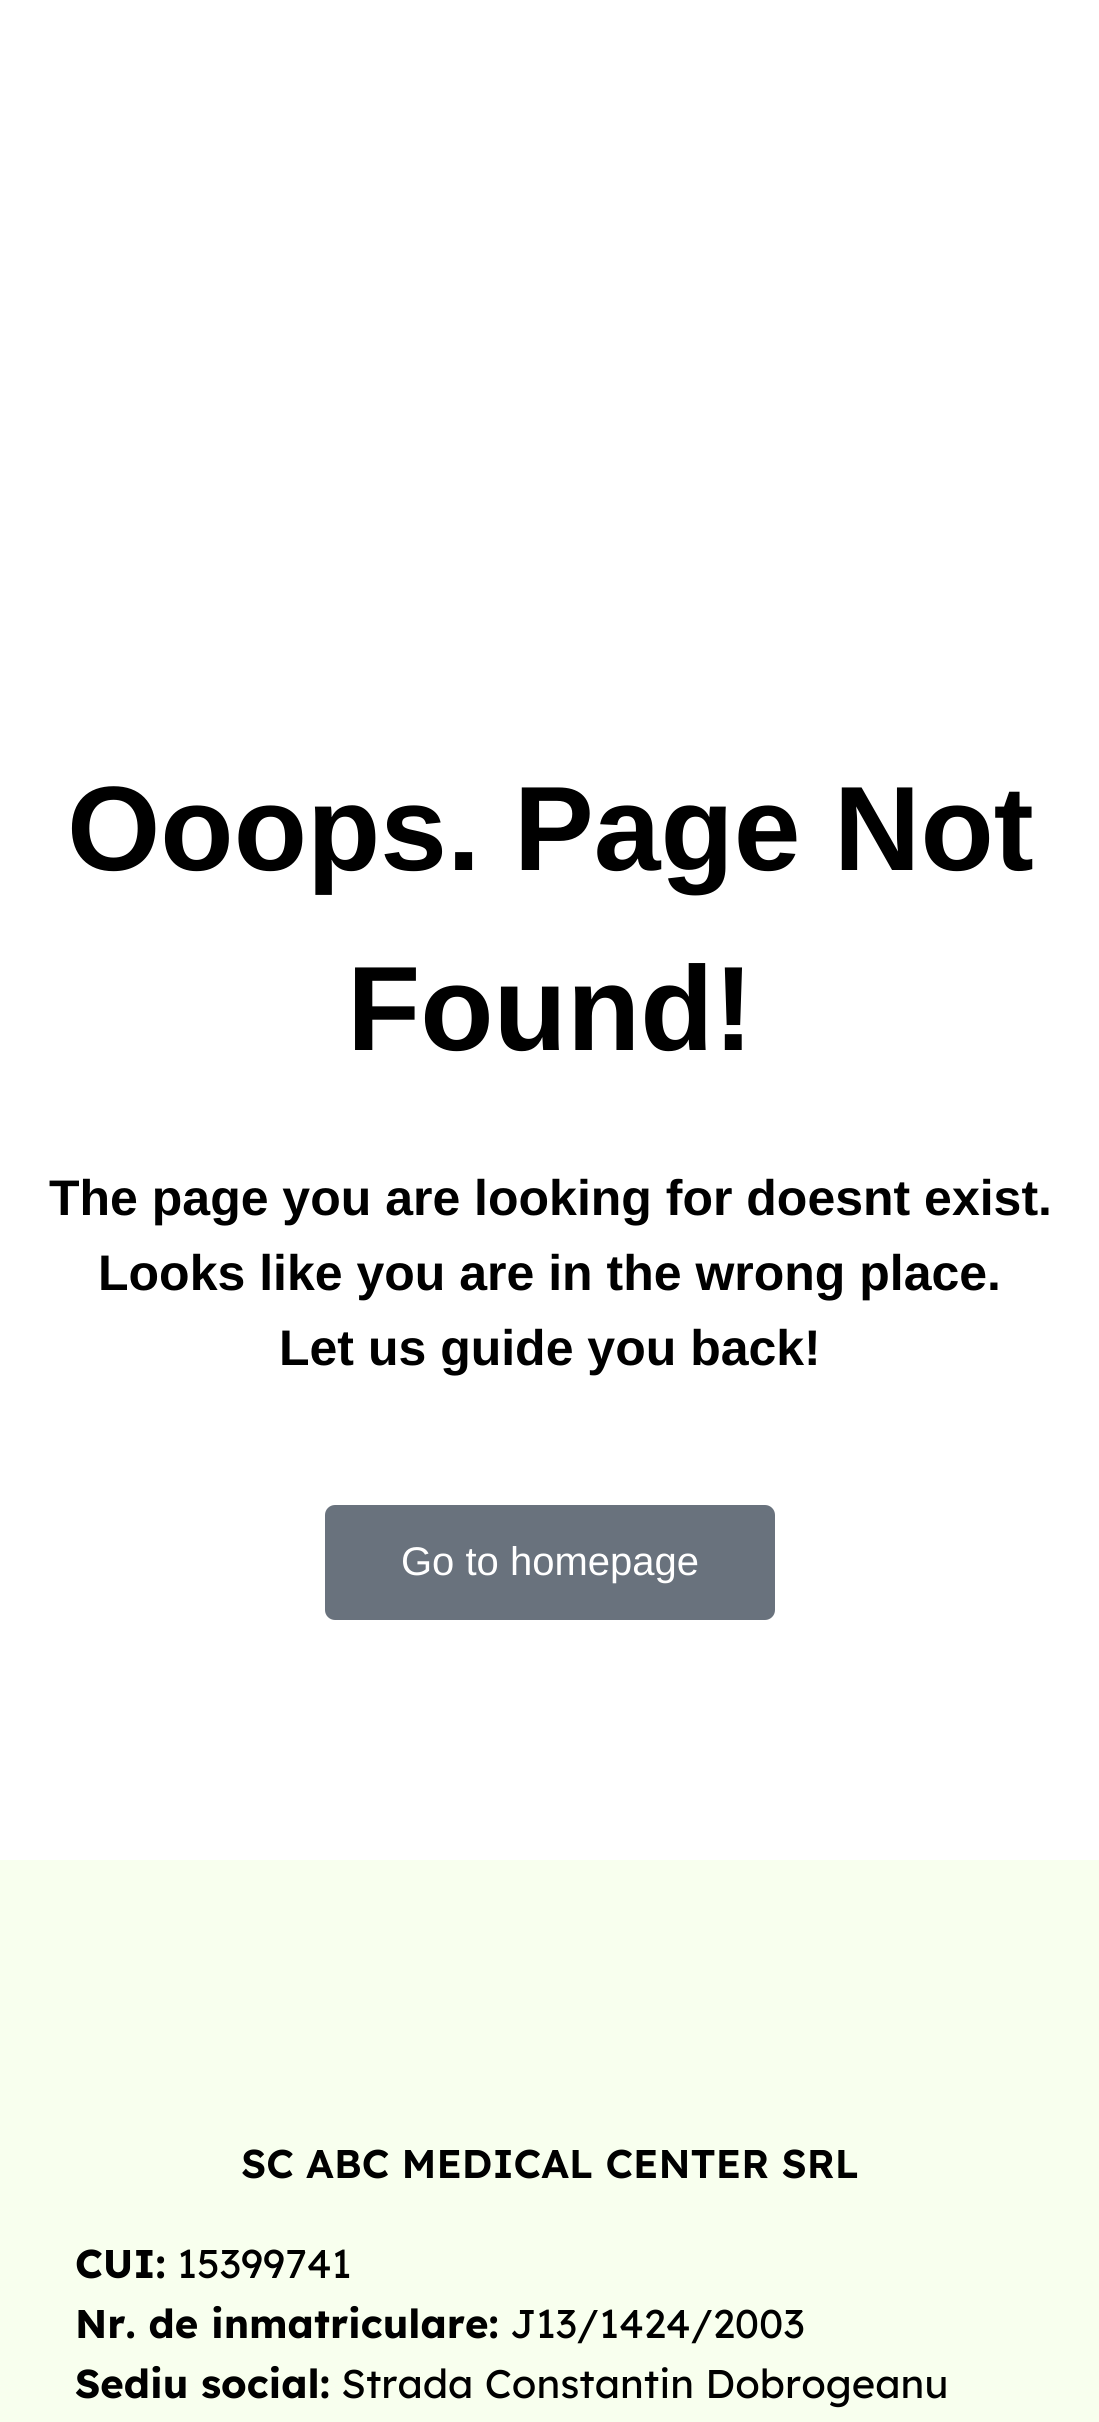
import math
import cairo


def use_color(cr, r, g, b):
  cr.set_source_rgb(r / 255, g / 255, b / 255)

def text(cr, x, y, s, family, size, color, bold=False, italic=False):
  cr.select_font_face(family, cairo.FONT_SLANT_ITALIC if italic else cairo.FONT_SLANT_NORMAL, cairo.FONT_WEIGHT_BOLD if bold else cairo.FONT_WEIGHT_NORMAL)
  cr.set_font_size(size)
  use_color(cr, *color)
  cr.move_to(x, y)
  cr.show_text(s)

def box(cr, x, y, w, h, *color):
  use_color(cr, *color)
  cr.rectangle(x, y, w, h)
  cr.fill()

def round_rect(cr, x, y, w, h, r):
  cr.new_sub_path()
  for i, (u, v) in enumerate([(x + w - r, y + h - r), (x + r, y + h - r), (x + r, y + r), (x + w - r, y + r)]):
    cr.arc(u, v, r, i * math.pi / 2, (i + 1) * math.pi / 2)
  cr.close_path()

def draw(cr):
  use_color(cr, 255, 255, 255)
  cr.paint()
  use_color(cr, 105, 114, 125)
  round_rect(cr, 325, 1505, 450, 115, 10)
  cr.fill()
  box(cr, 0, 1860, 1099, 562, 248, 255, 238)
  text(cr, 67, 870, "Ooops. Page Not", "Liberation Sans", 120, (0, 0, 0), bold=True)
  text(cr, 347, 1050, "Found!", "Liberation Sans", 120, (0, 0, 0), bold=True)
  text(cr, 49, 1215, "The page you are looking for doesnt exist.", "Liberation Sans", 50, (0, 0, 0), bold=True)
  text(cr, 98, 1290, "Looks like you are in the wrong place.", "Liberation Sans", 50, (0, 0, 0), bold=True)
  text(cr, 279, 1365, "Let us guide you back!", "Liberation Sans", 50, (0, 0, 0), bold=True)
  text(cr, 401, 1575, "Go to homepage", "Liberation Sans", 40, (255, 255, 255))
  text(cr, 241, 2178, "SC ABC MEDICAL CENTER SRL", "Lexend Deca SemiBold", 40, (0, 0, 0))
  text(cr, 75, 2278, "CUI:", "Lexend Deca", 40, (0, 0, 0), bold=True)
  text(cr, 177, 2278, "15399741", "Lexend Deca", 40, (0, 0, 0))
  text(cr, 75, 2338, "Nr. de inmatriculare:", "Lexend Deca", 40, (0, 0, 0), bold=True)
  text(cr, 510, 2338, "J13/1424/2003", "Lexend Deca", 40, (0, 0, 0))
  text(cr, 75, 2398, "Sediu social:", "Lexend Deca", 40, (0, 0, 0), bold=True)
  text(cr, 341, 2398, "Strada Constantin Dobrogeanu", "Lexend Deca", 40, (0, 0, 0))


surface = cairo.ImageSurface(cairo.FORMAT_RGB24, 1099, 2422)
cr = cairo.Context(surface)
options = cairo.FontOptions()
options.set_hint_metrics(cairo.HINT_METRICS_OFF)
options.set_hint_style(cairo.HINT_STYLE_NONE)
cr.set_font_options(options)
cr.set_miter_limit(4)
draw(cr)
surface.write_to_png("out.png")
